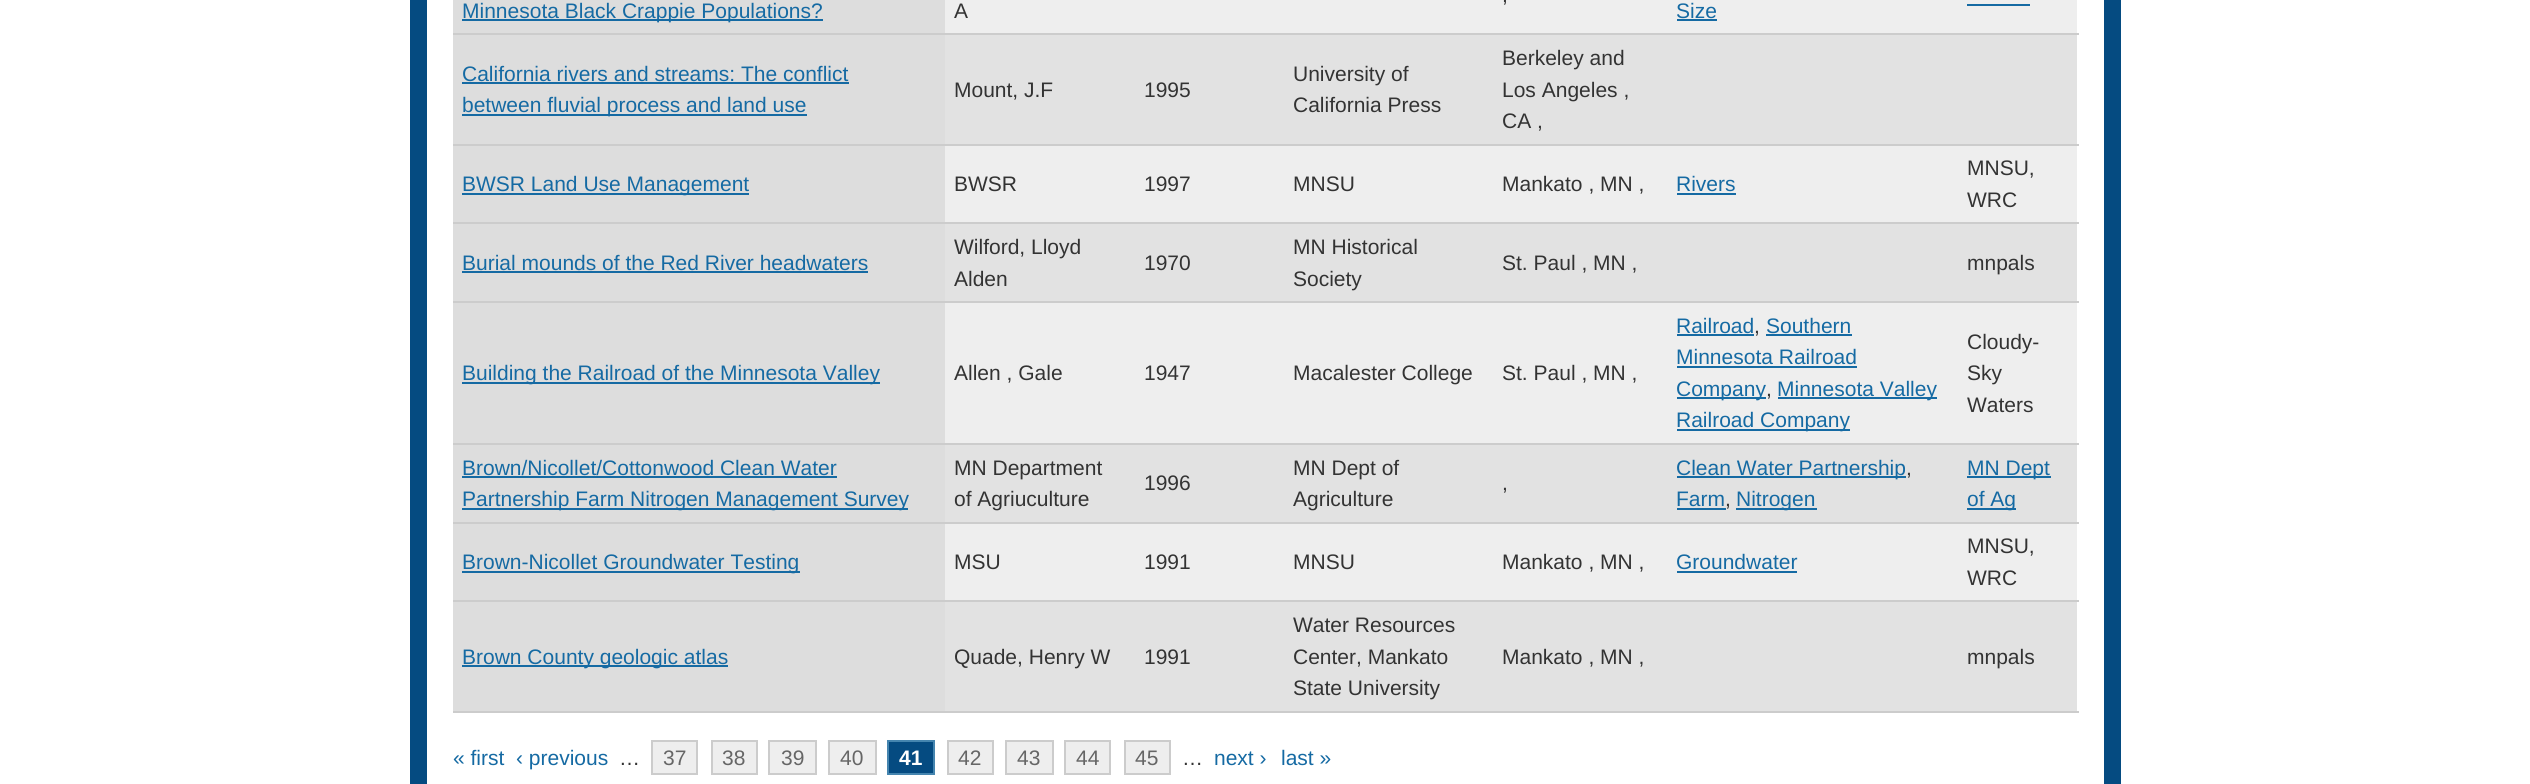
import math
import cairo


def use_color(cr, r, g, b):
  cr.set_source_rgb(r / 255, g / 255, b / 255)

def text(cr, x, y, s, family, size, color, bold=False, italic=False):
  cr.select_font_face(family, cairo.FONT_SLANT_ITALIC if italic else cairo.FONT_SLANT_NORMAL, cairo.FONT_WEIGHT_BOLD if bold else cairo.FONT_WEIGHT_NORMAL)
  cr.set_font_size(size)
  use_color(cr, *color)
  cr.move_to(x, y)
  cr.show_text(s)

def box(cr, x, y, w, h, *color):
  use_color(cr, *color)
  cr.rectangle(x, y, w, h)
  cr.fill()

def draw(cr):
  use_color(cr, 255, 255, 255)
  cr.paint()
  box(cr, 2104, 0, 17, 784, 5, 75, 129)
  box(cr, 410, 0, 17, 784, 5, 75, 129)
  box(cr, 945, 0, 1132, 33, 238, 238, 238)
  box(cr, 453, 33, 1626, 2, 204, 204, 204)
  box(cr, 453, 0, 492, 33, 221, 221, 221)
  box(cr, 462, 19, 361, 2, 21, 106, 163)
  box(cr, 1677, 19, 40, 2, 21, 106, 163)
  box(cr, 1967, 4, 63, 2, 21, 106, 163)
  box(cr, 945, 35, 1132, 109, 226, 226, 226)
  box(cr, 453, 144, 1626, 2, 204, 204, 204)
  box(cr, 453, 35, 492, 109, 221, 221, 221)
  box(cr, 462, 82, 387, 2, 21, 106, 163)
  box(cr, 462, 114, 345, 2, 21, 106, 163)
  box(cr, 945, 146, 1132, 76, 238, 238, 238)
  box(cr, 453, 222, 1626, 2, 204, 204, 204)
  box(cr, 453, 146, 492, 76, 221, 221, 221)
  box(cr, 462, 193, 287, 2, 21, 106, 163)
  box(cr, 1677, 193, 59, 2, 21, 106, 163)
  box(cr, 945, 224, 1132, 77, 226, 226, 226)
  box(cr, 453, 301, 1626, 2, 204, 204, 204)
  box(cr, 453, 224, 492, 77, 221, 221, 221)
  box(cr, 462, 271, 406, 2, 21, 106, 163)
  box(cr, 945, 303, 1132, 140, 238, 238, 238)
  box(cr, 453, 443, 1626, 2, 204, 204, 204)
  box(cr, 453, 303, 492, 140, 221, 221, 221)
  box(cr, 462, 382, 418, 2, 21, 106, 163)
  box(cr, 1677, 334, 77, 2, 21, 106, 163)
  box(cr, 1766, 334, 86, 2, 21, 106, 163)
  box(cr, 1677, 366, 180, 2, 21, 106, 163)
  box(cr, 1677, 397, 89, 2, 21, 106, 163)
  box(cr, 1778, 397, 159, 2, 21, 106, 163)
  box(cr, 1677, 429, 173, 2, 21, 106, 163)
  box(cr, 945, 445, 1132, 77, 226, 226, 226)
  box(cr, 453, 522, 1626, 2, 204, 204, 204)
  box(cr, 453, 445, 492, 77, 221, 221, 221)
  box(cr, 462, 476, 375, 2, 21, 106, 163)
  box(cr, 462, 508, 446, 2, 21, 106, 163)
  box(cr, 1677, 476, 229, 2, 21, 106, 163)
  box(cr, 1677, 508, 49, 2, 21, 106, 163)
  box(cr, 1736, 508, 81, 2, 21, 106, 163)
  box(cr, 1967, 476, 84, 2, 21, 106, 163)
  box(cr, 1967, 508, 49, 2, 21, 106, 163)
  box(cr, 945, 524, 1132, 76, 238, 238, 238)
  box(cr, 453, 600, 1626, 2, 204, 204, 204)
  box(cr, 453, 524, 492, 76, 221, 221, 221)
  box(cr, 462, 571, 338, 2, 21, 106, 163)
  box(cr, 1677, 571, 120, 2, 21, 106, 163)
  box(cr, 945, 602, 1132, 109, 226, 226, 226)
  box(cr, 453, 711, 1626, 2, 204, 204, 204)
  box(cr, 453, 602, 492, 109, 221, 221, 221)
  box(cr, 462, 665, 266, 2, 21, 106, 163)
  use_color(cr, 238, 238, 238)
  cr.rectangle(652, 741, 45, 33)
  cr.fill_preserve()
  use_color(cr, 204, 204, 204)
  cr.stroke()
  use_color(cr, 238, 238, 238)
  cr.rectangle(712, 741, 45, 33)
  cr.fill_preserve()
  use_color(cr, 204, 204, 204)
  cr.stroke()
  use_color(cr, 238, 238, 238)
  cr.rectangle(769, 741, 47, 33)
  cr.fill_preserve()
  use_color(cr, 204, 204, 204)
  cr.stroke()
  use_color(cr, 238, 238, 238)
  cr.rectangle(829, 741, 47, 33)
  cr.fill_preserve()
  use_color(cr, 204, 204, 204)
  cr.stroke()
  use_color(cr, 5, 75, 129)
  cr.rectangle(888, 741, 46, 33)
  cr.fill_preserve()
  use_color(cr, 69, 133, 175)
  cr.stroke()
  use_color(cr, 238, 238, 238)
  cr.rectangle(948, 741, 45, 33)
  cr.fill_preserve()
  use_color(cr, 204, 204, 204)
  cr.stroke()
  use_color(cr, 238, 238, 238)
  cr.rectangle(1006, 741, 47, 33)
  cr.fill_preserve()
  use_color(cr, 204, 204, 204)
  cr.stroke()
  use_color(cr, 238, 238, 238)
  cr.rectangle(1065, 741, 45, 33)
  cr.fill_preserve()
  use_color(cr, 204, 204, 204)
  cr.stroke()
  use_color(cr, 238, 238, 238)
  cr.rectangle(1125, 741, 45, 33)
  cr.fill_preserve()
  use_color(cr, 204, 204, 204)
  cr.stroke()
  text(cr, 462, 18, "Minnesota Black Crappie Populations?", "Liberation Sans", 21, (21, 106, 163))
  text(cr, 954, 18, "A", "Liberation Sans", 21, (51, 51, 51))
  text(cr, 1502, 2, ",", "Liberation Sans", 21, (51, 51, 51))
  text(cr, 1676, 18, "Size", "Liberation Sans", 21, (21, 106, 163))
  text(cr, 462, 81, "California rivers and streams: The conflict", "Liberation Sans", 21, (21, 106, 163))
  text(cr, 462, 112, "between fluvial process and land use", "Liberation Sans", 21, (21, 106, 163))
  text(cr, 954, 97, "Mount, J.F", "Liberation Sans", 21, (51, 51, 51))
  text(cr, 1144, 97, "1995", "Liberation Sans", 21, (51, 51, 51))
  text(cr, 1293, 81, "University of", "Liberation Sans", 21, (51, 51, 51))
  text(cr, 1293, 112, "California Press", "Liberation Sans", 21, (51, 51, 51))
  text(cr, 1502, 65, "Berkeley and", "Liberation Sans", 21, (51, 51, 51))
  text(cr, 1502, 97, "Los Angeles ,", "Liberation Sans", 21, (51, 51, 51))
  text(cr, 1502, 128, "CA ,", "Liberation Sans", 21, (51, 51, 51))
  text(cr, 462, 191, "BWSR Land Use Management", "Liberation Sans", 21, (21, 106, 163))
  text(cr, 954, 191, "BWSR", "Liberation Sans", 21, (51, 51, 51))
  text(cr, 1144, 191, "1997", "Liberation Sans", 21, (51, 51, 51))
  text(cr, 1293, 191, "MNSU", "Liberation Sans", 21, (51, 51, 51))
  text(cr, 1502, 191, "Mankato , MN ,", "Liberation Sans", 21, (51, 51, 51))
  text(cr, 1676, 191, "Rivers", "Liberation Sans", 21, (21, 106, 163))
  text(cr, 1967, 175, "MNSU,", "Liberation Sans", 21, (51, 51, 51))
  text(cr, 1967, 207, "WRC", "Liberation Sans", 21, (51, 51, 51))
  text(cr, 462, 270, "Burial mounds of the Red River headwaters", "Liberation Sans", 21, (21, 106, 163))
  text(cr, 954, 254, "Wilford, Lloyd", "Liberation Sans", 21, (51, 51, 51))
  text(cr, 954, 286, "Alden", "Liberation Sans", 21, (51, 51, 51))
  text(cr, 1144, 270, "1970", "Liberation Sans", 21, (51, 51, 51))
  text(cr, 1293, 254, "MN Historical", "Liberation Sans", 21, (51, 51, 51))
  text(cr, 1293, 286, "Society", "Liberation Sans", 21, (51, 51, 51))
  text(cr, 1502, 270, "St. Paul , MN ,", "Liberation Sans", 21, (51, 51, 51))
  text(cr, 1967, 270, "mnpals", "Liberation Sans", 21, (51, 51, 51))
  text(cr, 462, 380, "Building the Railroad of the Minnesota Valley", "Liberation Sans", 21, (21, 106, 163))
  text(cr, 954, 380, "Allen , Gale", "Liberation Sans", 21, (51, 51, 51))
  text(cr, 1144, 380, "1947", "Liberation Sans", 21, (51, 51, 51))
  text(cr, 1293, 380, "Macalester College", "Liberation Sans", 21, (51, 51, 51))
  text(cr, 1502, 380, "St. Paul , MN ,", "Liberation Sans", 21, (51, 51, 51))
  text(cr, 1676, 333, "Railroad", "Liberation Sans", 21, (21, 106, 163))
  text(cr, 1754, 333, ",", "Liberation Sans", 21, (51, 51, 51))
  text(cr, 1766, 333, "Southern", "Liberation Sans", 21, (21, 106, 163))
  text(cr, 1676, 364, "Minnesota Railroad", "Liberation Sans", 21, (21, 106, 163))
  text(cr, 1676, 396, "Company", "Liberation Sans", 21, (21, 106, 163))
  text(cr, 1766, 396, ",", "Liberation Sans", 21, (51, 51, 51))
  text(cr, 1777, 396, "Minnesota Valley", "Liberation Sans", 21, (21, 106, 163))
  text(cr, 1676, 427, "Railroad Company", "Liberation Sans", 21, (21, 106, 163))
  text(cr, 1967, 349, "Cloudy-", "Liberation Sans", 21, (51, 51, 51))
  text(cr, 1967, 380, "Sky", "Liberation Sans", 21, (51, 51, 51))
  text(cr, 1967, 412, "Waters", "Liberation Sans", 21, (51, 51, 51))
  text(cr, 462, 475, "Brown/Nicollet/Cottonwood Clean Water", "Liberation Sans", 21, (21, 106, 163))
  text(cr, 462, 506, "Partnership Farm Nitrogen Management Survey", "Liberation Sans", 21, (21, 106, 163))
  text(cr, 954, 475, "MN Department", "Liberation Sans", 21, (51, 51, 51))
  text(cr, 954, 506, "of Agriuculture", "Liberation Sans", 21, (51, 51, 51))
  text(cr, 1144, 490, "1996", "Liberation Sans", 21, (51, 51, 51))
  text(cr, 1293, 475, "MN Dept of", "Liberation Sans", 21, (51, 51, 51))
  text(cr, 1293, 506, "Agriculture", "Liberation Sans", 21, (51, 51, 51))
  text(cr, 1502, 490, ",", "Liberation Sans", 21, (51, 51, 51))
  text(cr, 1676, 475, "Clean Water Partnership", "Liberation Sans", 21, (21, 106, 163))
  text(cr, 1906, 475, ",", "Liberation Sans", 21, (51, 51, 51))
  text(cr, 1676, 506, "Farm", "Liberation Sans", 21, (21, 106, 163))
  text(cr, 1725, 506, ",", "Liberation Sans", 21, (51, 51, 51))
  text(cr, 1736, 506, "Nitrogen", "Liberation Sans", 21, (21, 106, 163))
  text(cr, 1967, 475, "MN Dept", "Liberation Sans", 21, (21, 106, 163))
  text(cr, 1967, 506, "of Ag", "Liberation Sans", 21, (21, 106, 163))
  text(cr, 462, 569, "Brown-Nicollet Groundwater Testing", "Liberation Sans", 21, (21, 106, 163))
  text(cr, 954, 569, "MSU", "Liberation Sans", 21, (51, 51, 51))
  text(cr, 1144, 569, "1991", "Liberation Sans", 21, (51, 51, 51))
  text(cr, 1293, 569, "MNSU", "Liberation Sans", 21, (51, 51, 51))
  text(cr, 1502, 569, "Mankato , MN ,", "Liberation Sans", 21, (51, 51, 51))
  text(cr, 1676, 569, "Groundwater", "Liberation Sans", 21, (21, 106, 163))
  text(cr, 1967, 553, "MNSU,", "Liberation Sans", 21, (51, 51, 51))
  text(cr, 1967, 585, "WRC", "Liberation Sans", 21, (51, 51, 51))
  text(cr, 462, 664, "Brown County geologic atlas", "Liberation Sans", 21, (21, 106, 163))
  text(cr, 954, 664, "Quade, Henry W", "Liberation Sans", 21, (51, 51, 51))
  text(cr, 1144, 664, "1991", "Liberation Sans", 21, (51, 51, 51))
  text(cr, 1293, 632, "Water Resources", "Liberation Sans", 21, (51, 51, 51))
  text(cr, 1293, 664, "Center, Mankato", "Liberation Sans", 21, (51, 51, 51))
  text(cr, 1293, 695, "State University", "Liberation Sans", 21, (51, 51, 51))
  text(cr, 1502, 664, "Mankato , MN ,", "Liberation Sans", 21, (51, 51, 51))
  text(cr, 1967, 664, "mnpals", "Liberation Sans", 21, (51, 51, 51))
  text(cr, 453, 765, "« first", "Liberation Sans", 21, (21, 106, 163))
  text(cr, 516, 765, "‹ previous", "Liberation Sans", 21, (21, 106, 163))
  text(cr, 619, 765, "…", "Liberation Sans", 21, (51, 51, 51))
  text(cr, 663, 765, "37", "Liberation Sans", 21, (102, 102, 102))
  text(cr, 722, 765, "38", "Liberation Sans", 21, (102, 102, 102))
  text(cr, 781, 765, "39", "Liberation Sans", 21, (102, 102, 102))
  text(cr, 840, 765, "40", "Liberation Sans", 21, (102, 102, 102))
  text(cr, 899, 765, "41", "Liberation Sans", 21, (255, 255, 255), bold=True)
  text(cr, 958, 765, "42", "Liberation Sans", 21, (102, 102, 102))
  text(cr, 1017, 765, "43", "Liberation Sans", 21, (102, 102, 102))
  text(cr, 1076, 765, "44", "Liberation Sans", 21, (102, 102, 102))
  text(cr, 1135, 765, "45", "Liberation Sans", 21, (102, 102, 102))
  text(cr, 1182, 765, "…", "Liberation Sans", 21, (51, 51, 51))
  text(cr, 1214, 765, "next ›", "Liberation Sans", 21, (21, 106, 163))
  text(cr, 1281, 765, "last »", "Liberation Sans", 21, (21, 106, 163))


surface = cairo.ImageSurface(cairo.FORMAT_RGB24, 2530, 784)
cr = cairo.Context(surface)
options = cairo.FontOptions()
options.set_hint_metrics(cairo.HINT_METRICS_OFF)
options.set_hint_style(cairo.HINT_STYLE_NONE)
cr.set_font_options(options)
cr.set_miter_limit(4)
draw(cr)
surface.write_to_png("out.png")
